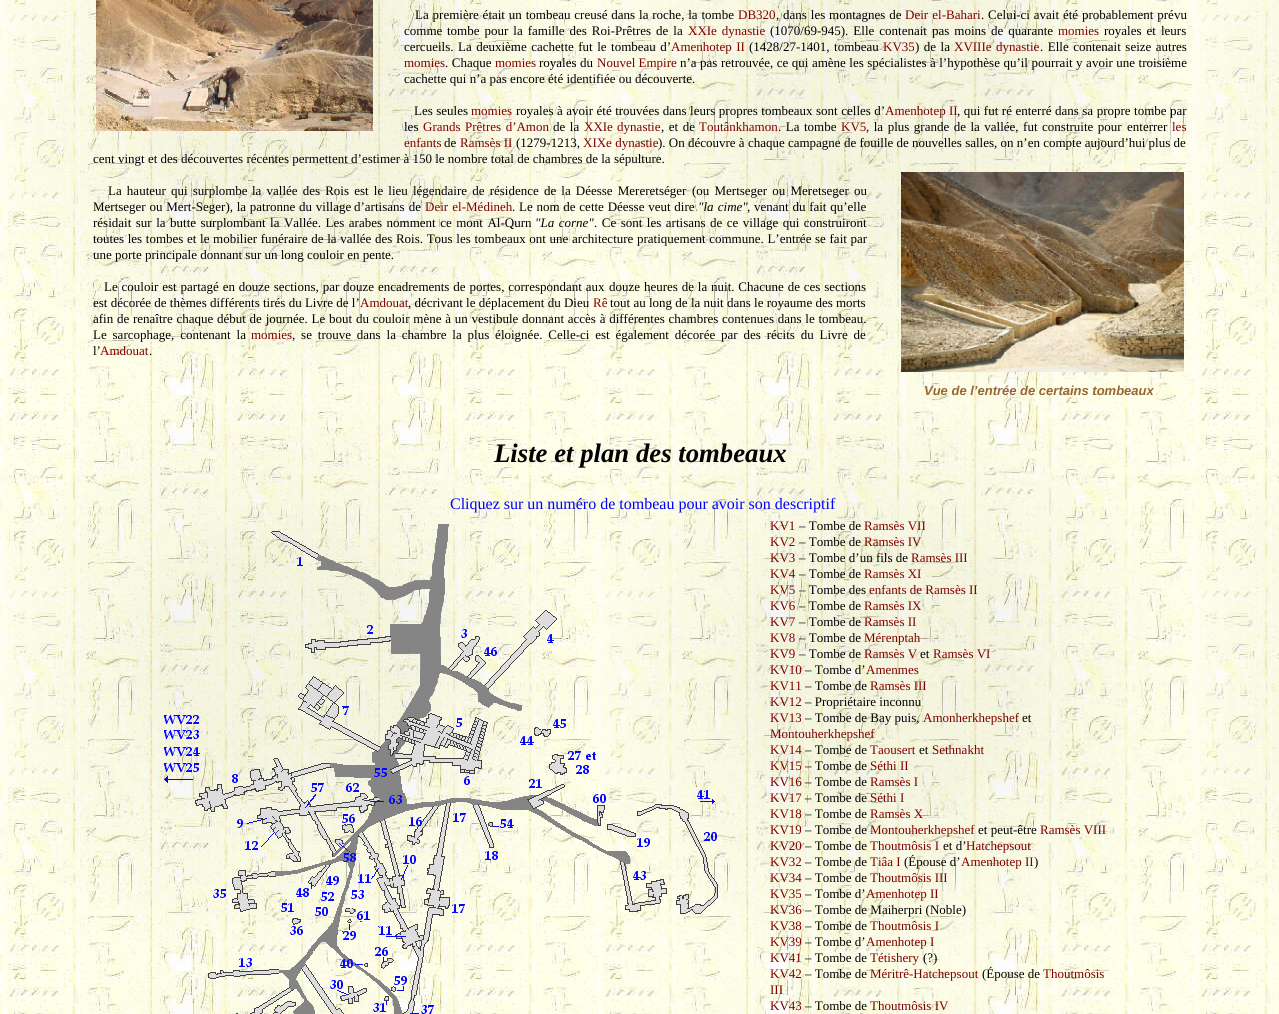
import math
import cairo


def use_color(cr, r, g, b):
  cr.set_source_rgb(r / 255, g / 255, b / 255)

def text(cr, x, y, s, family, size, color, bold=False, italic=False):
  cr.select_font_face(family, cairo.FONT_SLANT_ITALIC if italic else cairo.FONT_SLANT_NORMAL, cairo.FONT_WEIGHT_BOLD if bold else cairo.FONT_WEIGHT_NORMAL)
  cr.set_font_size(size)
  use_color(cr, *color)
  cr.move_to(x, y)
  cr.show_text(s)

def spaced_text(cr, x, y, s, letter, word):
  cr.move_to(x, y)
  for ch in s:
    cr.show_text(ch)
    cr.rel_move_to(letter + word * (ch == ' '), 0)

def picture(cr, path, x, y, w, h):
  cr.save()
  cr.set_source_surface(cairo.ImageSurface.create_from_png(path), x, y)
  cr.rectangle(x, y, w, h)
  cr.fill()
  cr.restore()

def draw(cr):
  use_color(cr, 255, 255, 255)
  cr.paint()
  picture(cr, "img_01.png", 0, 0, 1279, 1014)
  picture(cr, "img_02.png", 96, 0, 277, 131)
  picture(cr, "img_03.png", 901, 172, 283, 200)
  picture(cr, "img_04.png", 164, 524, 554, 490)
  cr.select_font_face("Liberation Serif")
  cr.set_font_size(13)
  use_color(cr, 0, 0, 0)
  spaced_text(cr, 415, 19, "La première était un tombeau creusé dans la roche, la tombe", 0, 0.6)
  text(cr, 738, 19, "DB320", "Liberation Serif", 13, (128, 0, 0))
  use_color(cr, 0, 0, 0)
  spaced_text(cr, 776, 19, ", dans les montagnes de", 0, 0.6)
  use_color(cr, 128, 0, 0)
  spaced_text(cr, 905, 19, "Deir el-Bahari", 0, 1)
  use_color(cr, 0, 0, 0)
  spaced_text(cr, 981, 19, ". Celui-ci avait été probablement prévu", 0, 0.6)
  text(cr, 404, 35, "comme", "Liberation Serif", 13, (0, 0, 0))
  spaced_text(cr, 447, 35, "tombe pour la famille des Roi-Prêtres de la", 0, 1.75)
  use_color(cr, 128, 0, 0)
  spaced_text(cr, 688, 35, "XXIe dynastie", 0, 1.75)
  use_color(cr, 0, 0, 0)
  spaced_text(cr, 770, 35, "(1070/69-945). Elle contenait pas moins de quarante", 0, 1.75)
  text(cr, 1058, 35, "momies", "Liberation Serif", 13, (128, 0, 0))
  use_color(cr, 0, 0, 0)
  spaced_text(cr, 1104, 35, "royales et leurs", 0, 1.75)
  spaced_text(cr, 404, 51, "cercueils. La deuxième cachette fut le tombeau d’", 0, 1.25)
  use_color(cr, 128, 0, 0)
  spaced_text(cr, 671, 51, "Amenhotep II", 0, 1.25)
  use_color(cr, 0, 0, 0)
  spaced_text(cr, 749, 51, "(1428/27-1401, tombeau", 0, 1.25)
  text(cr, 883, 51, "KV35", "Liberation Serif", 13, (128, 0, 0))
  use_color(cr, 0, 0, 0)
  spaced_text(cr, 915, 51, ") de la", 0, 1.25)
  use_color(cr, 128, 0, 0)
  spaced_text(cr, 954, 51, "XVIIIe dynastie", 0, 1.25)
  use_color(cr, 0, 0, 0)
  spaced_text(cr, 1040, 51, ". Elle contenait seize autres", 0, 1.25)
  text(cr, 404, 67, "momies", "Liberation Serif", 13, (128, 0, 0))
  use_color(cr, 0, 0, 0)
  spaced_text(cr, 445, 67, ". Chaque", 0, 0.25)
  text(cr, 495, 67, "momies", "Liberation Serif", 13, (128, 0, 0))
  use_color(cr, 0, 0, 0)
  spaced_text(cr, 539, 67, "royales du", 0, 0.25)
  text(cr, 597, 67, "Nouvel Empire", "Liberation Serif", 13, (128, 0, 0))
  use_color(cr, 0, 0, 0)
  spaced_text(cr, 680, 67, "n’a pas retrouvée, ce qui amène les spécialistes à l’hypothèse qu’il pourrait y avoir une troisième", 0, 0.25)
  text(cr, 404, 83, "cachette qui n’a pas encore été identifiée ou découverte.", "Liberation Serif", 13, (0, 0, 0))
  spaced_text(cr, 414, 115, "Les seules", 0, 0.25)
  text(cr, 471, 115, "momies", "Liberation Serif", 13, (128, 0, 0))
  use_color(cr, 0, 0, 0)
  spaced_text(cr, 516, 115, "royales à avoir été trouvées dans leurs propres tombeaux sont celles d’", 0, 0.25)
  text(cr, 885, 115, "Amenhotep II", "Liberation Serif", 13, (128, 0, 0))
  use_color(cr, 0, 0, 0)
  spaced_text(cr, 957, 115, ", qui fut ré enterré dans sa propre tombe par", 0, 0.25)
  text(cr, 404, 131, "les", "Liberation Serif", 13, (0, 0, 0))
  use_color(cr, 128, 0, 0)
  spaced_text(cr, 423, 131, "Grands Prêtres d’Amon", 0, 1.25)
  use_color(cr, 0, 0, 0)
  spaced_text(cr, 553, 131, "de la", 0, 1.25)
  use_color(cr, 128, 0, 0)
  spaced_text(cr, 584, 131, "XXIe dynastie", 0, 1)
  use_color(cr, 0, 0, 0)
  spaced_text(cr, 661, 131, ", et de", 0, 1.25)
  text(cr, 699, 131, "Toutânkhamon", "Liberation Serif", 13, (128, 0, 0))
  use_color(cr, 0, 0, 0)
  spaced_text(cr, 778, 131, ". La tombe", 0, 1.25)
  text(cr, 841, 131, "KV5", "Liberation Serif", 13, (128, 0, 0))
  use_color(cr, 0, 0, 0)
  spaced_text(cr, 866, 131, ", la plus grande de la vallée, fut construite pour", 0, 1.25)
  text(cr, 1127, 131, "enterrer", "Liberation Serif", 13, (0, 0, 0))
  text(cr, 1172, 131, "les", "Liberation Serif", 13, (128, 0, 0))
  text(cr, 404, 147, "enfants", "Liberation Serif", 13, (128, 0, 0))
  text(cr, 444, 147, "de", "Liberation Serif", 13, (0, 0, 0))
  text(cr, 460, 147, "Ramsès II", "Liberation Serif", 13, (128, 0, 0))
  text(cr, 516, 147, "(1279-1213,", "Liberation Serif", 13, (0, 0, 0))
  text(cr, 583, 147, "XIXe dynastie", "Liberation Serif", 13, (128, 0, 0))
  text(cr, 658, 147, "). On découvre à chaque campagne de fouille de nouvelles salles, on n’en compte aujourd’hui plus de", "Liberation Serif", 13, (0, 0, 0))
  text(cr, 93, 163, "cent vingt et des découvertes récentes permettent d’estimer à 150 le nombre total de chambres de la sépulture.", "Liberation Serif", 13, (0, 0, 0))
  spaced_text(cr, 108, 195, "La hauteur qui surplombe", 0, 1.9)
  spaced_text(cr, 252, 195, "la vallée des Rois est le lieu légendaire de résidence de la Déesse Mereretséger", 0, 1.9)
  spaced_text(cr, 692, 195, "(ou Mertseger ou Meretseger ou", 0, 1.9)
  spaced_text(cr, 93, 211, "Mertseger ou Mert-Seger), la patronne du village", 0, 0.5)
  spaced_text(cr, 354, 211, "d’artisans de", 0, 1)
  use_color(cr, 128, 0, 0)
  spaced_text(cr, 425, 211, "Deir el-Médineh", 0, 1)
  text(cr, 512, 211, ".", "Liberation Serif", 13, (0, 0, 0))
  spaced_text(cr, 519, 211, "Le nom de cette Déesse veut dire", 0, 0.5)
  cr.select_font_face("Liberation Serif", cairo.FONT_SLANT_ITALIC)
  spaced_text(cr, 698, 211, "\"la cime\"", 0, 1)
  cr.select_font_face("Liberation Serif")
  spaced_text(cr, 747, 211, ", venant du fait qu’elle", 0, 0.5)
  spaced_text(cr, 93, 227, "résidait sur la butte surplombant la Vallée. Les arabes nomment ce mont Al-Qurn", 0, 1.25)
  cr.select_font_face("Liberation Serif", cairo.FONT_SLANT_ITALIC)
  spaced_text(cr, 535, 227, "\"La corne\"", 0, 1.25)
  cr.select_font_face("Liberation Serif")
  spaced_text(cr, 594, 227, ". Ce sont les artisans de ce village qui construiront", 0, 1.25)
  spaced_text(cr, 93, 243, "toutes les tombes et le mobilier funéraire de la vallée des Rois. Tous les tombeaux ont une architecture pratiquement commune. L’entrée se fait par", 0, 0.4)
  text(cr, 93, 259, "une porte principale donnant sur un long couloir en pente.", "Liberation Serif", 13, (0, 0, 0))
  spaced_text(cr, 104, 291, "Le couloir est partagé en douze sections, par douze encadrements de portes, correspondant aux", 0, 0.6)
  spaced_text(cr, 609, 291, "douze heures de la nuit. Chacune de ces sections", 0, 0.6)
  text(cr, 93, 307, "est décorée de thèmes différents tirés du Livre de l’", "Liberation Serif", 13, (0, 0, 0))
  text(cr, 360, 307, "Amdouat", "Liberation Serif", 13, (128, 0, 0))
  text(cr, 408, 307, ", décrivant le déplacement du Dieu", "Liberation Serif", 13, (0, 0, 0))
  text(cr, 593, 307, "Rê", "Liberation Serif", 13, (128, 0, 0))
  text(cr, 610, 307, "tout au long de la nuit dans le royaume des morts", "Liberation Serif", 13, (0, 0, 0))
  spaced_text(cr, 93, 323, "afin de renaître chaque début de journée. Le bout du couloir mène à un vestibule donnant accès à différentes chambres contenues dans le tombeau.", 0, 0.5)
  spaced_text(cr, 93, 339, "Le sarcophage, contenant la", 0, 2.6)
  text(cr, 251, 339, "momies", "Liberation Serif", 13, (128, 0, 0))
  use_color(cr, 0, 0, 0)
  spaced_text(cr, 292, 339, ", se trouve dans la chambre la plus éloignée. Celle-ci est également décorée par des récits du Livre de", 0, 2.6)
  text(cr, 93, 355, "l’", "Liberation Serif", 13, (0, 0, 0))
  text(cr, 100, 355, "Amdouat", "Liberation Serif", 13, (128, 0, 0))
  text(cr, 149, 355, ".", "Liberation Serif", 13, (0, 0, 0))
  text(cr, 924, 395, "Vue de l’entrée de certains tombeaux", "Liberation Sans", 13, (153, 102, 51), bold=True, italic=True)
  text(cr, 494, 462, "Liste et plan des tombeaux", "Liberation Serif", 26.75, (0, 0, 0), bold=True, italic=True)
  text(cr, 450, 509, "Cliquez sur un numéro de tombeau pour avoir son descriptif", "Liberation Serif", 16, (0, 0, 255))
  text(cr, 770, 530, "KV1", "Liberation Serif", 13, (128, 0, 0))
  text(cr, 799, 530, "– Tombe de", "Liberation Serif", 13, (0, 0, 0))
  text(cr, 864, 530, "Ramsès VII", "Liberation Serif", 13, (128, 0, 0))
  text(cr, 770, 546, "KV2", "Liberation Serif", 13, (128, 0, 0))
  text(cr, 799, 546, "– Tombe de", "Liberation Serif", 13, (0, 0, 0))
  text(cr, 864, 546, "Ramsès IV", "Liberation Serif", 13, (128, 0, 0))
  text(cr, 770, 562, "KV3", "Liberation Serif", 13, (128, 0, 0))
  text(cr, 799, 562, "– Tombe d’un fils de", "Liberation Serif", 13, (0, 0, 0))
  text(cr, 911, 562, "Ramsès III", "Liberation Serif", 13, (128, 0, 0))
  text(cr, 770, 578, "KV4", "Liberation Serif", 13, (128, 0, 0))
  text(cr, 799, 578, "– Tombe de", "Liberation Serif", 13, (0, 0, 0))
  text(cr, 864, 578, "Ramsès XI", "Liberation Serif", 13, (128, 0, 0))
  text(cr, 770, 594, "KV5", "Liberation Serif", 13, (128, 0, 0))
  text(cr, 799, 594, "– Tombe des", "Liberation Serif", 13, (0, 0, 0))
  text(cr, 869, 594, "enfants de Ramsès II", "Liberation Serif", 13, (128, 0, 0))
  text(cr, 770, 610, "KV6", "Liberation Serif", 13, (128, 0, 0))
  text(cr, 799, 610, "– Tombe de", "Liberation Serif", 13, (0, 0, 0))
  text(cr, 864, 610, "Ramsès IX", "Liberation Serif", 13, (128, 0, 0))
  text(cr, 770, 626, "KV7", "Liberation Serif", 13, (128, 0, 0))
  text(cr, 799, 626, "– Tombe de", "Liberation Serif", 13, (0, 0, 0))
  text(cr, 864, 626, "Ramsès II", "Liberation Serif", 13, (128, 0, 0))
  text(cr, 770, 642, "KV8", "Liberation Serif", 13, (128, 0, 0))
  text(cr, 799, 642, "– Tombe de", "Liberation Serif", 13, (0, 0, 0))
  text(cr, 864, 642, "Mérenptah", "Liberation Serif", 13, (128, 0, 0))
  text(cr, 770, 658, "KV9", "Liberation Serif", 13, (128, 0, 0))
  text(cr, 799, 658, "– Tombe de", "Liberation Serif", 13, (0, 0, 0))
  text(cr, 864, 658, "Ramsès V", "Liberation Serif", 13, (128, 0, 0))
  text(cr, 920, 658, "et", "Liberation Serif", 13, (0, 0, 0))
  text(cr, 933, 658, "Ramsès VI", "Liberation Serif", 13, (128, 0, 0))
  text(cr, 770, 674, "KV10", "Liberation Serif", 13, (128, 0, 0))
  text(cr, 805, 674, "– Tombe d’", "Liberation Serif", 13, (0, 0, 0))
  text(cr, 866, 674, "Amenmes", "Liberation Serif", 13, (128, 0, 0))
  text(cr, 770, 690, "KV11", "Liberation Serif", 13, (128, 0, 0))
  text(cr, 805, 690, "– Tombe de", "Liberation Serif", 13, (0, 0, 0))
  text(cr, 870, 690, "Ramsès III", "Liberation Serif", 13, (128, 0, 0))
  text(cr, 770, 706, "KV12", "Liberation Serif", 13, (128, 0, 0))
  text(cr, 805, 706, "– Propriétaire inconnu", "Liberation Serif", 13, (0, 0, 0))
  text(cr, 770, 722, "KV13", "Liberation Serif", 13, (128, 0, 0))
  text(cr, 805, 722, "– Tombe de Bay puis,", "Liberation Serif", 13, (0, 0, 0))
  text(cr, 923, 722, "Amonherkhepshef", "Liberation Serif", 13, (128, 0, 0))
  text(cr, 1022, 722, "et", "Liberation Serif", 13, (0, 0, 0))
  text(cr, 770, 738, "Montouherkhepshef", "Liberation Serif", 13, (128, 0, 0))
  text(cr, 770, 754, "KV14", "Liberation Serif", 13, (128, 0, 0))
  text(cr, 805, 754, "– Tombe de", "Liberation Serif", 13, (0, 0, 0))
  text(cr, 870, 754, "Taousert", "Liberation Serif", 13, (128, 0, 0))
  text(cr, 919, 754, "et", "Liberation Serif", 13, (0, 0, 0))
  text(cr, 932, 754, "Sethnakht", "Liberation Serif", 13, (128, 0, 0))
  text(cr, 770, 770, "KV15", "Liberation Serif", 13, (128, 0, 0))
  text(cr, 805, 770, "– Tombe de", "Liberation Serif", 13, (0, 0, 0))
  text(cr, 870, 770, "Séthi II", "Liberation Serif", 13, (128, 0, 0))
  text(cr, 770, 786, "KV16", "Liberation Serif", 13, (128, 0, 0))
  text(cr, 805, 786, "– Tombe de", "Liberation Serif", 13, (0, 0, 0))
  text(cr, 870, 786, "Ramsès I", "Liberation Serif", 13, (128, 0, 0))
  text(cr, 770, 802, "KV17", "Liberation Serif", 13, (128, 0, 0))
  text(cr, 805, 802, "– Tombe de", "Liberation Serif", 13, (0, 0, 0))
  text(cr, 870, 802, "Séthi I", "Liberation Serif", 13, (128, 0, 0))
  text(cr, 770, 818, "KV18", "Liberation Serif", 13, (128, 0, 0))
  text(cr, 805, 818, "– Tombe de", "Liberation Serif", 13, (0, 0, 0))
  text(cr, 870, 818, "Ramsès X", "Liberation Serif", 13, (128, 0, 0))
  text(cr, 770, 834, "KV19", "Liberation Serif", 13, (128, 0, 0))
  text(cr, 805, 834, "– Tombe de", "Liberation Serif", 13, (0, 0, 0))
  text(cr, 870, 834, "Montouherkhepshef", "Liberation Serif", 13, (128, 0, 0))
  text(cr, 978, 834, "et peut-être", "Liberation Serif", 13, (0, 0, 0))
  text(cr, 1040, 834, "Ramsès VIII", "Liberation Serif", 13, (128, 0, 0))
  text(cr, 770, 850, "KV20", "Liberation Serif", 13, (128, 0, 0))
  text(cr, 805, 850, "– Tombe de", "Liberation Serif", 13, (0, 0, 0))
  text(cr, 870, 850, "Thoutmôsis I", "Liberation Serif", 13, (128, 0, 0))
  text(cr, 943, 850, "et d’", "Liberation Serif", 13, (0, 0, 0))
  text(cr, 966, 850, "Hatchepsout", "Liberation Serif", 13, (128, 0, 0))
  text(cr, 770, 866, "KV32", "Liberation Serif", 13, (128, 0, 0))
  text(cr, 805, 866, "– Tombe de", "Liberation Serif", 13, (0, 0, 0))
  text(cr, 870, 866, "Tiâa I", "Liberation Serif", 13, (128, 0, 0))
  text(cr, 904, 866, "(Épouse d’", "Liberation Serif", 13, (0, 0, 0))
  text(cr, 961, 866, "Amenhotep II", "Liberation Serif", 13, (128, 0, 0))
  text(cr, 1034, 866, ")", "Liberation Serif", 13, (0, 0, 0))
  text(cr, 770, 882, "KV34", "Liberation Serif", 13, (128, 0, 0))
  text(cr, 805, 882, "– Tombe de", "Liberation Serif", 13, (0, 0, 0))
  text(cr, 870, 882, "Thoutmôsis III", "Liberation Serif", 13, (128, 0, 0))
  text(cr, 770, 898, "KV35", "Liberation Serif", 13, (128, 0, 0))
  text(cr, 805, 898, "– Tombe d’", "Liberation Serif", 13, (0, 0, 0))
  text(cr, 866, 898, "Amenhotep II", "Liberation Serif", 13, (128, 0, 0))
  text(cr, 770, 914, "KV36", "Liberation Serif", 13, (128, 0, 0))
  text(cr, 805, 914, "– Tombe de Maiherpri (Noble)", "Liberation Serif", 13, (0, 0, 0))
  text(cr, 770, 930, "KV38", "Liberation Serif", 13, (128, 0, 0))
  text(cr, 805, 930, "– Tombe de", "Liberation Serif", 13, (0, 0, 0))
  text(cr, 870, 930, "Thoutmôsis I", "Liberation Serif", 13, (128, 0, 0))
  text(cr, 770, 946, "KV39", "Liberation Serif", 13, (128, 0, 0))
  text(cr, 805, 946, "– Tombe d’", "Liberation Serif", 13, (0, 0, 0))
  text(cr, 866, 946, "Amenhotep I", "Liberation Serif", 13, (128, 0, 0))
  text(cr, 770, 962, "KV41", "Liberation Serif", 13, (128, 0, 0))
  text(cr, 805, 962, "– Tombe de", "Liberation Serif", 13, (0, 0, 0))
  text(cr, 870, 962, "Tétishery", "Liberation Serif", 13, (128, 0, 0))
  text(cr, 923, 962, "(?)", "Liberation Serif", 13, (0, 0, 0))
  text(cr, 770, 978, "KV42", "Liberation Serif", 13, (128, 0, 0))
  text(cr, 805, 978, "– Tombe de", "Liberation Serif", 13, (0, 0, 0))
  text(cr, 870, 978, "Méritrê-Hatchepsout", "Liberation Serif", 13, (128, 0, 0))
  text(cr, 982, 978, "(Épouse de", "Liberation Serif", 13, (0, 0, 0))
  text(cr, 1043, 978, "Thoutmôsis", "Liberation Serif", 13, (128, 0, 0))
  text(cr, 770, 994, "III", "Liberation Serif", 13, (128, 0, 0))
  text(cr, 770, 1010, "KV43", "Liberation Serif", 13, (128, 0, 0))
  text(cr, 805, 1010, "– Tombe de", "Liberation Serif", 13, (0, 0, 0))
  text(cr, 870, 1010, "Thoutmôsis IV", "Liberation Serif", 13, (128, 0, 0))


surface = cairo.ImageSurface(cairo.FORMAT_RGB24, 1279, 1014)
cr = cairo.Context(surface)
options = cairo.FontOptions()
options.set_hint_metrics(cairo.HINT_METRICS_OFF)
options.set_hint_style(cairo.HINT_STYLE_NONE)
cr.set_font_options(options)
cr.set_miter_limit(4)
draw(cr)
surface.write_to_png("out.png")
